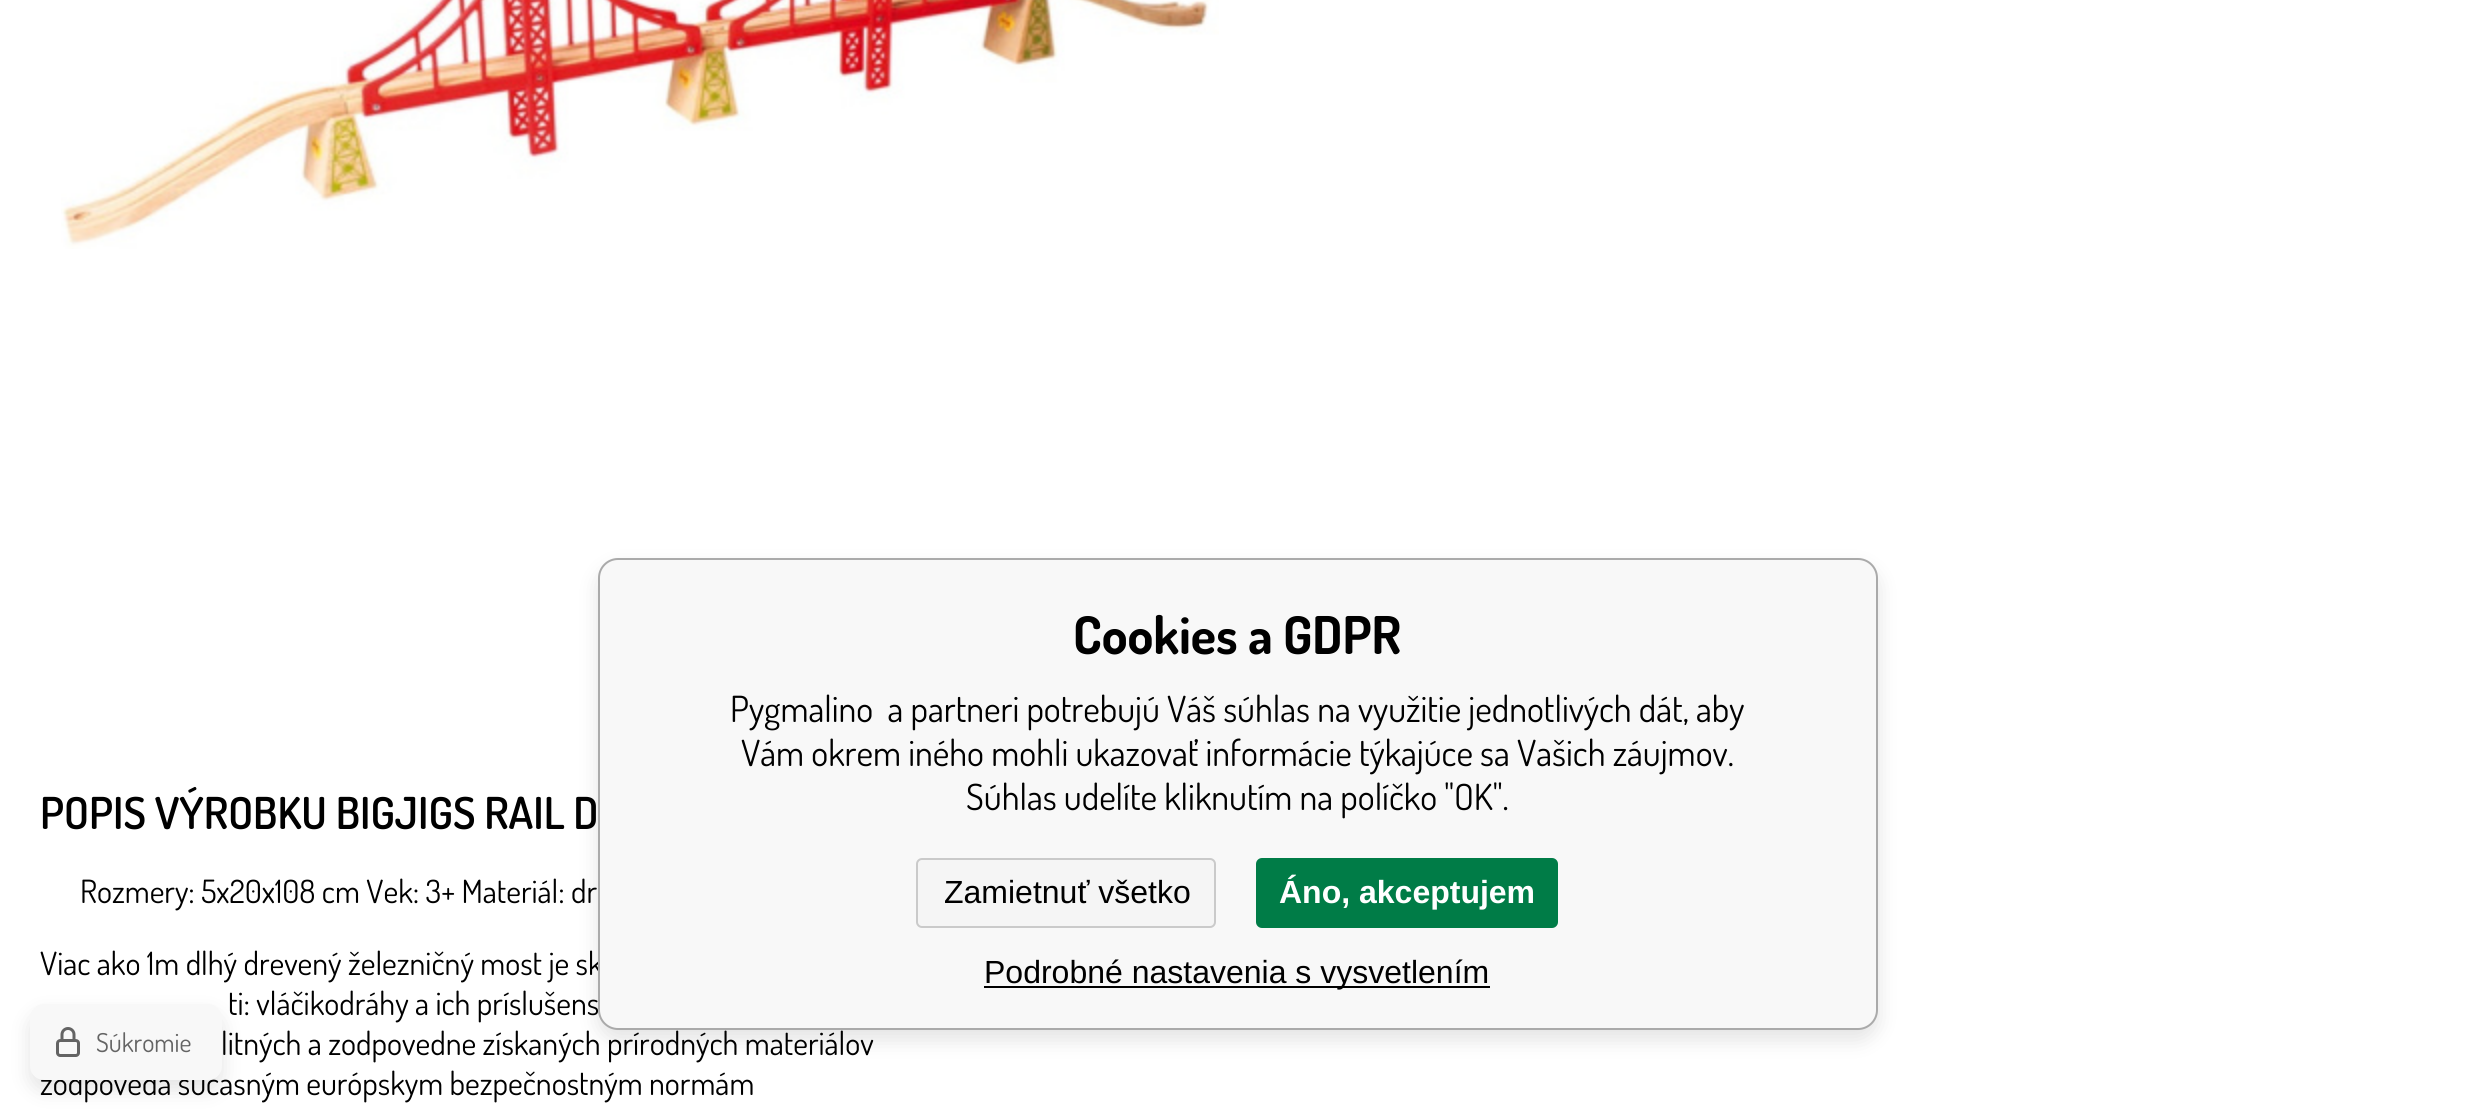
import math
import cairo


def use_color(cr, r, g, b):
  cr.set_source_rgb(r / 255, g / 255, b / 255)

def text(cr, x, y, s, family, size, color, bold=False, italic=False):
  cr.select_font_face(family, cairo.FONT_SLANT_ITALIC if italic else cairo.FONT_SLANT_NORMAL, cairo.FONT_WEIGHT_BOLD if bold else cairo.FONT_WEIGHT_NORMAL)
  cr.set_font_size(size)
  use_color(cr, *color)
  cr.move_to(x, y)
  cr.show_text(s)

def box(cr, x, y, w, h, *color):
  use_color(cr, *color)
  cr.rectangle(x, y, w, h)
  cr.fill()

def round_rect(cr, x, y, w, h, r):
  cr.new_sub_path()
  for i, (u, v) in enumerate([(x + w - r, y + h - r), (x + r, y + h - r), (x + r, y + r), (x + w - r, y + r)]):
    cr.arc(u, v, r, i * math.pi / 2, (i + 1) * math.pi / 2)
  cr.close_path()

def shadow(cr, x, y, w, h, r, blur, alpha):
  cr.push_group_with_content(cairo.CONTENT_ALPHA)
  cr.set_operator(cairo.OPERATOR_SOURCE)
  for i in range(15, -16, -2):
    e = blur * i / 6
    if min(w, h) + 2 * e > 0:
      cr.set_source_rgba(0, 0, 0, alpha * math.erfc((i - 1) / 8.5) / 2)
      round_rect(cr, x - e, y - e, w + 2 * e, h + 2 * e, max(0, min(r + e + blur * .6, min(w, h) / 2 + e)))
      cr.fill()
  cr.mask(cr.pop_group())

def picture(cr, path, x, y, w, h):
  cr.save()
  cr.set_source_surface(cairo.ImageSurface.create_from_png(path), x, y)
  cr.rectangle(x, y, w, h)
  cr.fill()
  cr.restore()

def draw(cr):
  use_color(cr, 255, 255, 255)
  cr.paint()
  use_color(cr, 200, 200, 200)
  shadow(cr, 598, 568, 1280, 472, 20, 10, 0.5)
  shadow(cr, 30, 1014, 192, 76, 14, 10, 0.5)
  picture(cr, "img_02.png", 61, 0, 1158, 249)
  text(cr, 40, 829, "POPIS VÝROBKU BIGJIGS RAIL D", "Dosis SemiBold", 44, (0, 0, 0))
  text(cr, 80, 903, "Rozmery: 5x20x108 cm Vek: 3+ Materiál: dr", "Dosis", 32, (0, 0, 0))
  text(cr, 40, 975, "Viac ako 1m dlhý drevený železničný most je sk", "Dosis", 32, (0, 0, 0))
  text(cr, 228, 1015, "ti: vláčikodráhy a ich príslušens", "Dosis", 32, (0, 0, 0))
  use_color(cr, 248, 248, 248)
  round_rect(cr, 599, 559, 1278, 470, 19)
  cr.fill_preserve()
  use_color(cr, 170, 170, 170)
  cr.stroke()
  text(cr, 966, 810, "Súhlas udelíte kliknutím na políčko \"OK\".", "Dosis", 36, (0, 0, 0))
  text(cr, 741, 766, "Vám okrem iného mohli ukazovať informácie týkajúce sa Vašich záujmov.", "Dosis", 36, (0, 0, 0))
  text(cr, 730, 722, "Pygmalino  a partneri potrebujú Váš súhlas na využitie jednotlivých dát, aby", "Dosis", 36, (0, 0, 0))
  box(cr, 984, 986, 506, 2, 0, 0, 0)
  text(cr, 984, 983, "Podrobné nastavenia s vysvetlením", "Liberation Sans", 32, (0, 0, 0))
  use_color(cr, 0, 124, 71)
  round_rect(cr, 1257, 859, 300, 68, 5)
  cr.fill_preserve()
  cr.stroke()
  text(cr, 1279, 903, "Áno, akceptujem", "Liberation Sans", 32, (255, 255, 255), bold=True)
  use_color(cr, 245, 245, 245)
  round_rect(cr, 917, 859, 298, 68, 5)
  cr.fill_preserve()
  use_color(cr, 202, 202, 202)
  cr.stroke()
  text(cr, 944, 903, "Zamietnuť všetko", "Liberation Sans", 32, (0, 0, 0))
  text(cr, 1073, 654, "Cookies a GDPR", "Dosis", 52, (0, 0, 0), bold=True)
  text(cr, 221, 1055, "litných a zodpovedne získaných prírodných materiálov", "Dosis", 32, (0, 0, 0))
  text(cr, 40, 1095, "zodpovedá súčasným európskym bezpečnostným normám", "Dosis", 32, (0, 0, 0))
  use_color(cr, 248, 248, 248)
  round_rect(cr, 30, 1004, 192, 76, 14)
  cr.fill()
  text(cr, 96, 1052, "Súkromie", "Dosis", 26, (100, 100, 100))
  picture(cr, "img_01.png", 56, 1027, 24, 30)


surface = cairo.ImageSurface(cairo.FORMAT_RGB24, 2474, 1110)
cr = cairo.Context(surface)
options = cairo.FontOptions()
options.set_hint_metrics(cairo.HINT_METRICS_OFF)
options.set_hint_style(cairo.HINT_STYLE_NONE)
cr.set_font_options(options)
cr.set_miter_limit(4)
draw(cr)
surface.write_to_png("out.png")
